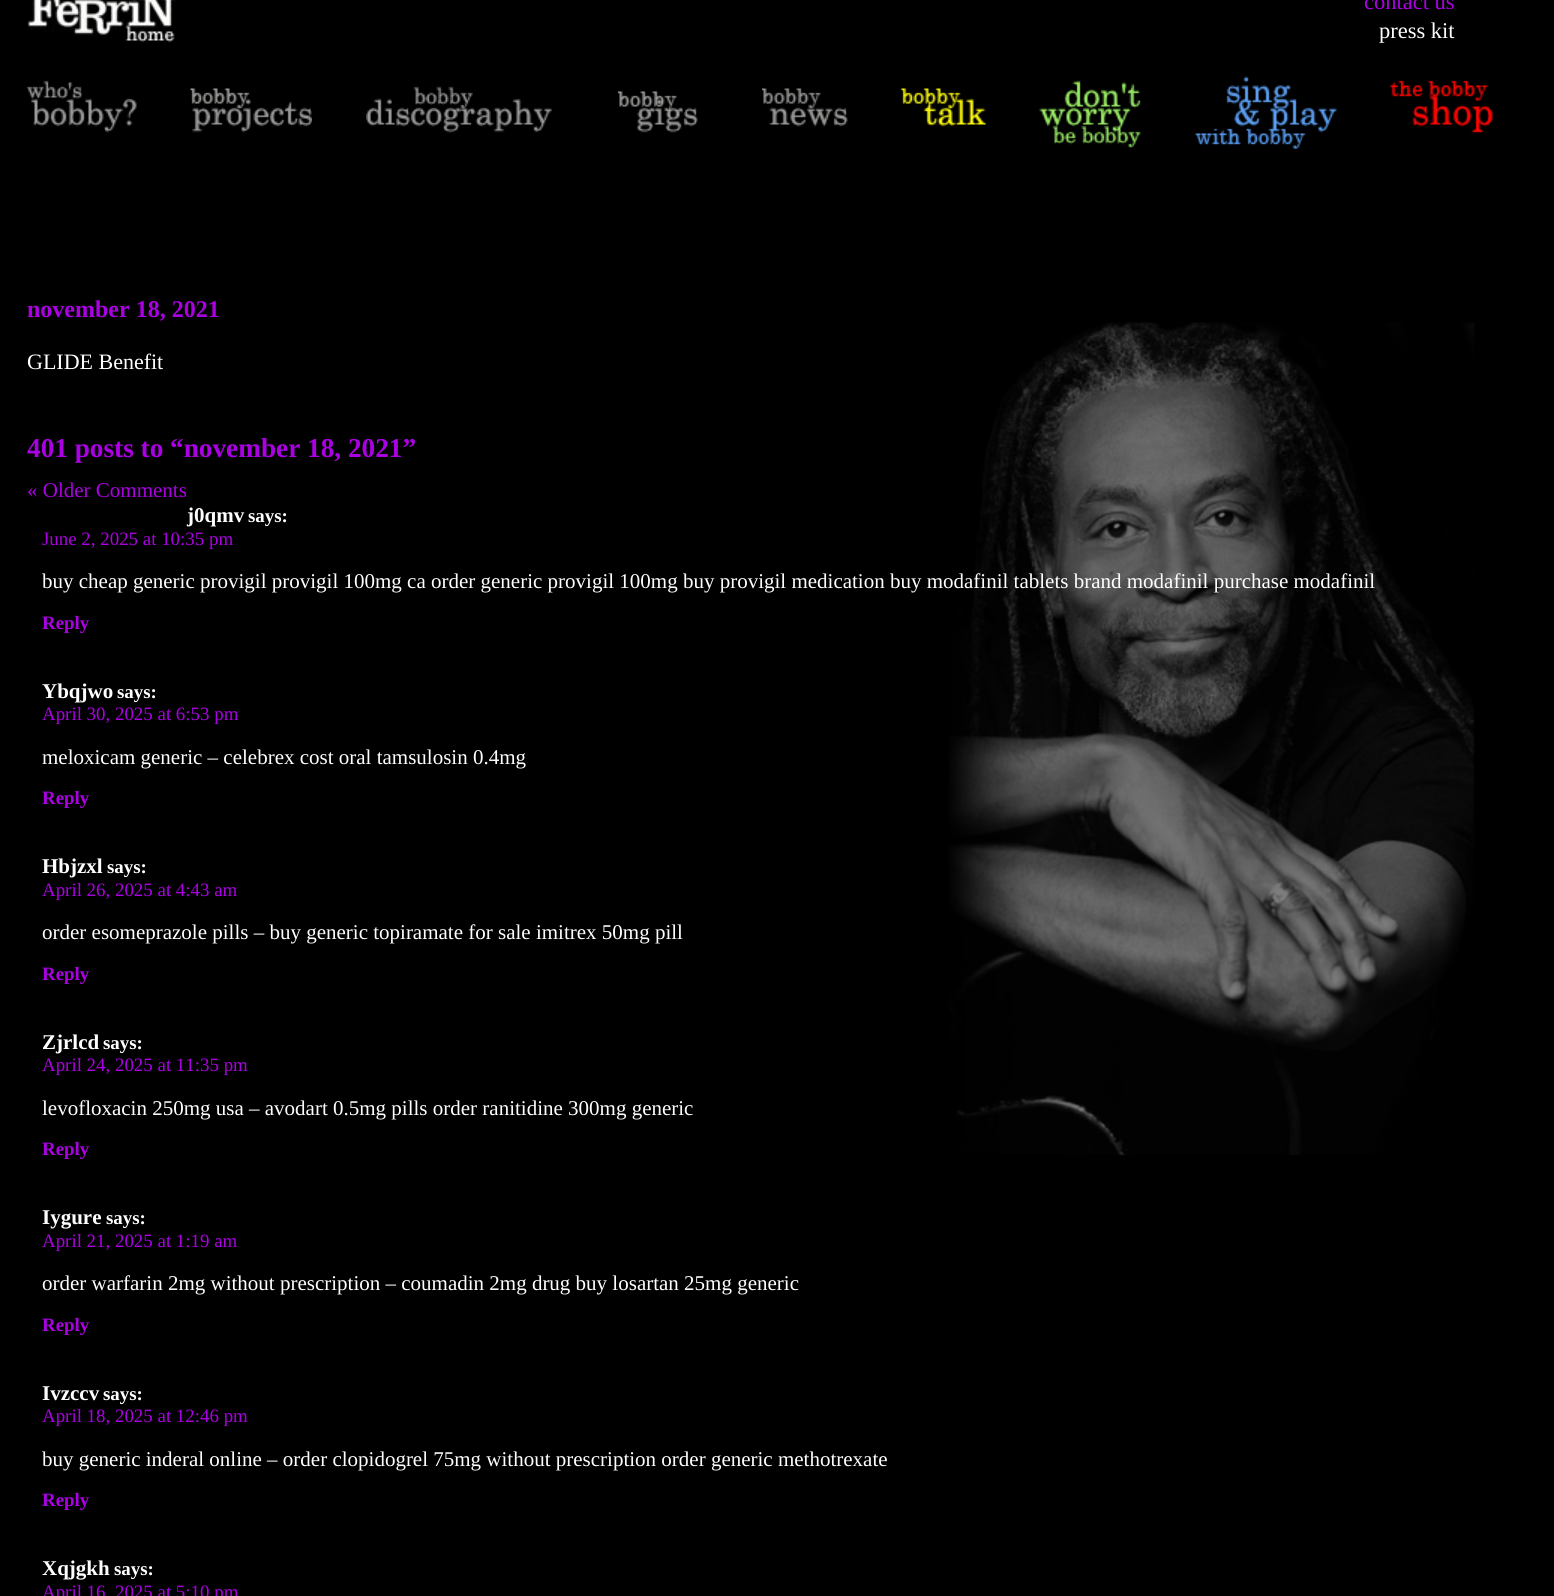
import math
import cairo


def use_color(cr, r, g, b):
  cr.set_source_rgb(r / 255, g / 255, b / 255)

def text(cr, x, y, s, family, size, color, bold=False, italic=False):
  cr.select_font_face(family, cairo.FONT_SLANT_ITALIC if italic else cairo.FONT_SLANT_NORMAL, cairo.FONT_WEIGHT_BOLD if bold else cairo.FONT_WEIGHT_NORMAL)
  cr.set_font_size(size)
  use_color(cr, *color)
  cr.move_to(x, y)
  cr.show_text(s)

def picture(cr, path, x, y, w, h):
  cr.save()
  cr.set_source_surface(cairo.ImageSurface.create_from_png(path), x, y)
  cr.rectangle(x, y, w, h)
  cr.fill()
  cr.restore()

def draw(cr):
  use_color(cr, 0, 0, 0)
  cr.paint()
  picture(cr, "img_01.png", 27, 0, 149, 43)
  picture(cr, "img_02.png", 27, 80, 110, 53)
  picture(cr, "img_03.png", 190, 88, 122, 45)
  picture(cr, "img_04.png", 366, 86, 186, 47)
  picture(cr, "img_05.png", 618, 91, 80, 42)
  picture(cr, "img_06.png", 762, 88, 86, 39)
  picture(cr, "img_07.png", 901, 88, 85, 39)
  picture(cr, "img_08.png", 1039, 80, 102, 68)
  picture(cr, "img_09.png", 1195, 76, 142, 73)
  picture(cr, "img_10.png", 1390, 80, 103, 53)
  picture(cr, "img_11.png", 949, 322, 526, 834)
  text(cr, 1364, 9, "contact us", "Liberation Serif", 22.5, (170, 0, 227))
  text(cr, 1379, 38, "press kit", "Liberation Serif", 22.5, (255, 255, 255))
  text(cr, 27, 317, "november 18, 2021", "Liberation Serif", 24, (170, 0, 227), bold=True)
  text(cr, 27, 369, "GLIDE Benefit", "Liberation Serif", 22, (255, 255, 255))
  text(cr, 27, 457, "401 posts to “november 18, 2021”", "Liberation Serif", 27.25, (170, 0, 227), bold=True)
  text(cr, 27, 497, "« Older Comments", "Liberation Serif", 21, (170, 0, 227))
  text(cr, 187, 522, "j0qmv", "Liberation Serif", 21, (255, 255, 255), bold=True)
  text(cr, 248, 522, "says:", "Liberation Serif", 18.9, (255, 255, 255), bold=True)
  text(cr, 42, 545, "June 2, 2025 at 10:35 pm", "Liberation Serif", 18.9, (170, 0, 227))
  text(cr, 42, 588, "buy cheap generic provigil provigil 100mg ca order generic provigil 100mg buy provigil medication buy modafinil tablets brand modafinil purchase modafinil", "Liberation Serif", 21, (255, 255, 255))
  text(cr, 42, 629, "Reply", "Liberation Serif", 18.9, (170, 0, 227), bold=True)
  text(cr, 42, 698, "Ybqjwo", "Liberation Serif", 21, (255, 255, 255), bold=True)
  text(cr, 117, 698, "says:", "Liberation Serif", 18.9, (255, 255, 255), bold=True)
  text(cr, 42, 720, "April 30, 2025 at 6:53 pm", "Liberation Serif", 18.9, (170, 0, 227))
  text(cr, 42, 764, "meloxicam generic – celebrex cost oral tamsulosin 0.4mg", "Liberation Serif", 21, (255, 255, 255))
  text(cr, 42, 804, "Reply", "Liberation Serif", 18.9, (170, 0, 227), bold=True)
  text(cr, 42, 873, "Hbjzxl", "Liberation Serif", 21, (255, 255, 255), bold=True)
  text(cr, 107, 873, "says:", "Liberation Serif", 18.9, (255, 255, 255), bold=True)
  text(cr, 42, 896, "April 26, 2025 at 4:43 am", "Liberation Serif", 18.9, (170, 0, 227))
  text(cr, 42, 939, "order esomeprazole pills – buy generic topiramate for sale imitrex 50mg pill", "Liberation Serif", 21, (255, 255, 255))
  text(cr, 42, 980, "Reply", "Liberation Serif", 18.9, (170, 0, 227), bold=True)
  text(cr, 42, 1049, "Zjrlcd", "Liberation Serif", 21, (255, 255, 255), bold=True)
  text(cr, 103, 1049, "says:", "Liberation Serif", 18.9, (255, 255, 255), bold=True)
  text(cr, 42, 1071, "April 24, 2025 at 11:35 pm", "Liberation Serif", 18.9, (170, 0, 227))
  text(cr, 42, 1115, "levofloxacin 250mg usa – avodart 0.5mg pills order ranitidine 300mg generic", "Liberation Serif", 21, (255, 255, 255))
  text(cr, 42, 1155, "Reply", "Liberation Serif", 18.9, (170, 0, 227), bold=True)
  text(cr, 42, 1224, "Iygure", "Liberation Serif", 21, (255, 255, 255), bold=True)
  text(cr, 106, 1224, "says:", "Liberation Serif", 18.9, (255, 255, 255), bold=True)
  text(cr, 42, 1247, "April 21, 2025 at 1:19 am", "Liberation Serif", 18.9, (170, 0, 227))
  text(cr, 42, 1290, "order warfarin 2mg without prescription – coumadin 2mg drug buy losartan 25mg generic", "Liberation Serif", 21, (255, 255, 255))
  text(cr, 42, 1331, "Reply", "Liberation Serif", 18.9, (170, 0, 227), bold=True)
  text(cr, 42, 1400, "Ivzccv", "Liberation Serif", 21, (255, 255, 255), bold=True)
  text(cr, 103, 1400, "says:", "Liberation Serif", 18.9, (255, 255, 255), bold=True)
  text(cr, 42, 1422, "April 18, 2025 at 12:46 pm", "Liberation Serif", 18.9, (170, 0, 227))
  text(cr, 42, 1466, "buy generic inderal online – order clopidogrel 75mg without prescription order generic methotrexate", "Liberation Serif", 21, (255, 255, 255))
  text(cr, 42, 1506, "Reply", "Liberation Serif", 18.9, (170, 0, 227), bold=True)
  text(cr, 42, 1575, "Xqjgkh", "Liberation Serif", 21, (255, 255, 255), bold=True)
  text(cr, 114, 1575, "says:", "Liberation Serif", 18.9, (255, 255, 255), bold=True)
  text(cr, 42, 1598, "April 16, 2025 at 5:10 pm", "Liberation Serif", 18.9, (170, 0, 227))


surface = cairo.ImageSurface(cairo.FORMAT_RGB24, 1554, 1596)
cr = cairo.Context(surface)
options = cairo.FontOptions()
options.set_hint_metrics(cairo.HINT_METRICS_OFF)
options.set_hint_style(cairo.HINT_STYLE_NONE)
cr.set_font_options(options)
cr.set_miter_limit(4)
draw(cr)
surface.write_to_png("out.png")
